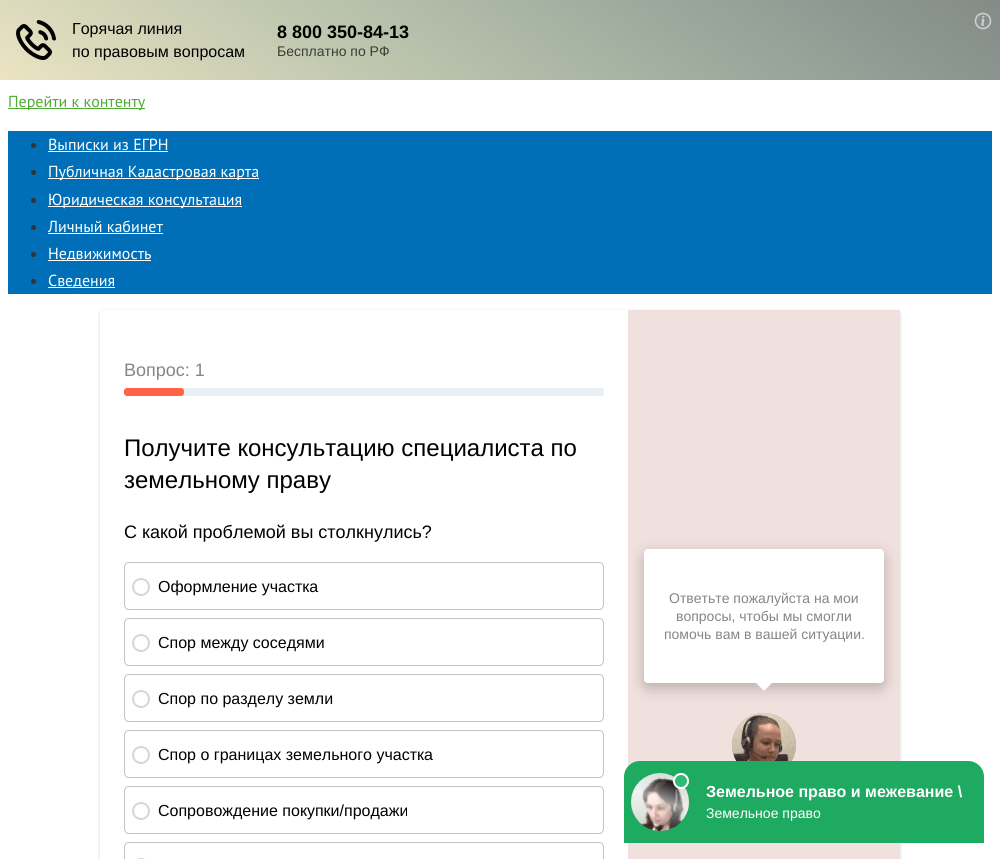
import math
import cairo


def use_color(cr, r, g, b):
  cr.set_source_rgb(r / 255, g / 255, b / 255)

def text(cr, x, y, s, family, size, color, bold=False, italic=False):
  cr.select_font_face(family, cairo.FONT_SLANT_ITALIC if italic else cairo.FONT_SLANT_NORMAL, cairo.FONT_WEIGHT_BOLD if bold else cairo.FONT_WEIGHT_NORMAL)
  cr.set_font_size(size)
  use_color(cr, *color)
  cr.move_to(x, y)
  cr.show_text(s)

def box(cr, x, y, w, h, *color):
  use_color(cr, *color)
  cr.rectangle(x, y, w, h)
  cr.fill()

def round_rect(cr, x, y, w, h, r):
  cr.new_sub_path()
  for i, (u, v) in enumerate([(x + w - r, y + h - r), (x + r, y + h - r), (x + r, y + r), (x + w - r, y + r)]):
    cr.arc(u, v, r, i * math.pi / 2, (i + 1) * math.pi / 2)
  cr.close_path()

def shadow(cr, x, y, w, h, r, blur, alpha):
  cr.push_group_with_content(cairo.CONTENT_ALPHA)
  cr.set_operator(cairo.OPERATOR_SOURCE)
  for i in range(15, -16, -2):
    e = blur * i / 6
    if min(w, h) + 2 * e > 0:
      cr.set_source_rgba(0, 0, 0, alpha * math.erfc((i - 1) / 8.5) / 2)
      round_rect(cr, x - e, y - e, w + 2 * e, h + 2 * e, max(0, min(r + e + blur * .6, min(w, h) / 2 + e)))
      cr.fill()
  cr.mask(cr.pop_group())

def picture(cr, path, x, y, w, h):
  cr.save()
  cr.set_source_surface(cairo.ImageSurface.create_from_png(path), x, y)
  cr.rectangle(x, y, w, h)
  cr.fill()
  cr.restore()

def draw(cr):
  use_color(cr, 255, 255, 255)
  cr.paint()
  gradient = cairo.LinearGradient(317, 302, 683, -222)
  gradient.add_color_stop_rgba(0, 0.922, 0.894, 0.765, 1)
  gradient.add_color_stop_rgba(0.2, 0.82, 0.827, 0.718, 1)
  gradient.add_color_stop_rgba(0.4, 0.725, 0.761, 0.675, 1)
  gradient.add_color_stop_rgba(0.6, 0.643, 0.69, 0.631, 1)
  gradient.add_color_stop_rgba(0.8, 0.573, 0.616, 0.584, 1)
  gradient.add_color_stop_rgba(1, 0.514, 0.545, 0.529, 1)
  cr.set_source(gradient)
  cr.rectangle(0, 0, 1000, 80)
  cr.fill()
  picture(cr, "img_01.png", 974, 12, 18, 18)
  picture(cr, "img_02.png", 16, 20, 40, 40)
  box(cr, 8, 108, 137, 1, 80, 171, 54)
  box(cr, 8, 131, 984, 163, 0, 111, 184)
  use_color(cr, 51, 51, 51)
  cr.arc(33.5, 145.5, 2.5, 0, 2 * math.pi)
  cr.fill()
  box(cr, 48, 151, 120, 1, 255, 255, 255)
  use_color(cr, 51, 51, 51)
  cr.arc(33.5, 172.5, 2.5, 0, 2 * math.pi)
  cr.fill()
  box(cr, 48, 178, 211, 1, 255, 255, 255)
  use_color(cr, 51, 51, 51)
  cr.arc(33.5, 200.5, 2.5, 0, 2 * math.pi)
  cr.fill()
  box(cr, 48, 206, 194, 1, 255, 255, 255)
  use_color(cr, 51, 51, 51)
  cr.arc(33.5, 227.5, 2.5, 0, 2 * math.pi)
  cr.fill()
  box(cr, 48, 233, 115, 1, 255, 255, 255)
  use_color(cr, 51, 51, 51)
  cr.arc(33.5, 254.5, 2.5, 0, 2 * math.pi)
  cr.fill()
  box(cr, 48, 260, 103, 1, 255, 255, 255)
  use_color(cr, 51, 51, 51)
  cr.arc(33.5, 281.5, 2.5, 0, 2 * math.pi)
  cr.fill()
  box(cr, 48, 287, 67, 1, 255, 255, 255)
  use_color(cr, 0, 0, 0)
  shadow(cr, 100, 311, 800, 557, 4, 1.5, 0.2)
  use_color(cr, 255, 255, 255)
  round_rect(cr, 100, 310, 800, 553, 4)
  cr.fill()
  use_color(cr, 233, 238, 243)
  round_rect(cr, 124, 388, 480, 8, 3)
  cr.fill()
  use_color(cr, 255, 99, 71)
  round_rect(cr, 124, 388, 60, 8, 3)
  cr.fill()
  round_rect(cr, 124.5, 562.5, 479, 47, 4.5)
  use_color(cr, 194, 194, 194)
  cr.set_line_width(1)
  cr.stroke()
  cr.arc(141, 587, 8, 0, 2 * math.pi)
  use_color(cr, 214, 214, 214)
  cr.set_line_width(2)
  cr.stroke()
  round_rect(cr, 124.5, 618.5, 479, 47, 4.5)
  use_color(cr, 194, 194, 194)
  cr.set_line_width(1)
  cr.stroke()
  cr.arc(141, 643, 8, 0, 2 * math.pi)
  use_color(cr, 214, 214, 214)
  cr.set_line_width(2)
  cr.stroke()
  round_rect(cr, 124.5, 674.5, 479, 47, 4.5)
  use_color(cr, 194, 194, 194)
  cr.set_line_width(1)
  cr.stroke()
  cr.arc(141, 699, 8, 0, 2 * math.pi)
  use_color(cr, 214, 214, 214)
  cr.set_line_width(2)
  cr.stroke()
  round_rect(cr, 124.5, 730.5, 479, 47, 4.5)
  use_color(cr, 194, 194, 194)
  cr.set_line_width(1)
  cr.stroke()
  cr.arc(141, 755, 8, 0, 2 * math.pi)
  use_color(cr, 214, 214, 214)
  cr.set_line_width(2)
  cr.stroke()
  round_rect(cr, 124.5, 786.5, 479, 47, 4.5)
  use_color(cr, 194, 194, 194)
  cr.set_line_width(1)
  cr.stroke()
  cr.arc(141, 811, 8, 0, 2 * math.pi)
  use_color(cr, 214, 214, 214)
  cr.set_line_width(2)
  cr.stroke()
  round_rect(cr, 124.5, 842.5, 479, 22, 4.5)
  use_color(cr, 194, 194, 194)
  cr.set_line_width(1)
  cr.stroke()
  round_rect(cr, 133, 859, 16, 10, 8)
  use_color(cr, 214, 214, 214)
  cr.set_line_width(2)
  cr.stroke()
  box(cr, 628, 310, 272, 549, 241, 225, 222)
  use_color(cr, 0, 0, 0)
  shadow(cr, 644, 554, 240, 134, 4, 7.5, 0.24)
  use_color(cr, 255, 255, 255)
  round_rect(cr, 644, 549, 240, 134, 4)
  cr.fill()
  cr.new_path()
  cr.move_to(756, 683)
  cr.line_to(772, 683)
  cr.line_to(764, 691)
  cr.close_path()
  cr.fill()
  use_color(cr, 181, 169, 167)
  cr.arc(764, 745, 32, 0, 2 * math.pi)
  cr.fill()
  picture(cr, "img_03.png", 732, 713, 64, 48)
  use_color(cr, 30, 170, 97)
  cr.new_path()
  cr.move_to(640, 761)
  cr.line_to(968, 761)
  cr.curve_to(977, 761, 984, 768, 984, 777)
  cr.line_to(984, 843)
  cr.line_to(624, 843)
  cr.line_to(624, 777)
  cr.curve_to(624, 768, 631, 761, 640, 761)
  cr.close_path()
  cr.fill()
  use_color(cr, 23, 128, 73)
  cr.arc(660, 802, 29, 0, 2 * math.pi)
  cr.fill()
  picture(cr, "img_04.png", 631, 773, 58, 58)
  gradient = cairo.LinearGradient(670, 778, 650, 833)
  gradient.add_color_stop_rgba(0, 1, 1, 1, 0)
  gradient.add_color_stop_rgba(0.4, 1, 1, 1, 0.6)
  gradient.add_color_stop_rgba(0.6, 1, 1, 1, 0.36)
  gradient.add_color_stop_rgba(1, 1, 1, 1, 0)
  cr.set_source(gradient)
  cr.new_path()
  cr.move_to(657, 773)
  cr.line_to(681, 782)
  cr.curve_to(686, 787, 689, 794, 689, 802)
  cr.curve_to(689, 818, 676, 831, 660, 831)
  cr.curve_to(644, 831, 631, 818, 631, 802)
  cr.curve_to(631, 787, 642, 775, 657, 773)
  cr.close_path()
  cr.fill()
  use_color(cr, 49, 185, 120)
  cr.arc(681, 781, 7, 0, 2 * math.pi)
  cr.fill_preserve()
  use_color(cr, 255, 255, 255)
  cr.stroke()
  text(cr, 72, 34, "Горячая линия", "Liberation Sans", 16, (0, 0, 0))
  text(cr, 72, 57, "по правовым вопросам", "Liberation Sans", 16, (0, 0, 0))
  text(cr, 277, 38, "8 800 350-84-13", "Liberation Sans", 18, (0, 0, 0), bold=True)
  text(cr, 277, 56, "Бесплатно по РФ", "Liberation Sans", 14, (58, 60, 53))
  text(cr, 8, 107, "Перейти к контенту", "PT Sans", 16, (80, 171, 54))
  text(cr, 48, 150, "Выписки из ЕГРН", "PT Sans", 16, (255, 255, 255))
  text(cr, 48, 177, "Публичная Кадастровая карта", "PT Sans", 16, (255, 255, 255))
  text(cr, 48, 205, "Юридическая консультация", "PT Sans", 16, (255, 255, 255))
  text(cr, 48, 232, "Личный кабинет", "PT Sans", 16, (255, 255, 255))
  text(cr, 48, 259, "Недвижимость", "PT Sans", 16, (255, 255, 255))
  text(cr, 48, 286, "Сведения", "PT Sans", 16, (255, 255, 255))
  text(cr, 124, 376, "Вопрос: 1", "Liberation Sans", 18, (133, 133, 133))
  text(cr, 124, 456, "Получите консультацию специалиста по", "Liberation Sans", 24, (0, 0, 0))
  text(cr, 124, 488, "земельному праву", "Liberation Sans", 24, (0, 0, 0))
  text(cr, 124, 538, "С какой проблемой вы столкнулись?", "Liberation Sans", 18, (0, 0, 0))
  text(cr, 158, 592, "Оформление участка", "Liberation Sans", 16, (0, 0, 0))
  text(cr, 158, 648, "Спор между соседями", "Liberation Sans", 16, (0, 0, 0))
  text(cr, 158, 704, "Спор по разделу земли", "Liberation Sans", 16, (0, 0, 0))
  text(cr, 158, 760, "Спор о границах земельного участка", "Liberation Sans", 16, (0, 0, 0))
  text(cr, 158, 816, "Сопровождение покупки/продажи", "Liberation Sans", 16, (0, 0, 0))
  text(cr, 669, 603, "Ответьте пожалуйста на мои", "Liberation Sans", 14, (133, 133, 133))
  text(cr, 676, 621, "вопросы, чтобы мы смогли", "Liberation Sans", 14, (133, 133, 133))
  text(cr, 664, 639, "помочь вам в вашей ситуации.", "Liberation Sans", 14, (133, 133, 133))
  text(cr, 706, 797, "Земельное право и межевание \\", "Liberation Sans", 16, (255, 255, 255), bold=True)
  text(cr, 706, 818, "Земельное право", "Liberation Sans", 14, (255, 255, 255))


surface = cairo.ImageSurface(cairo.FORMAT_RGB24, 1000, 859)
cr = cairo.Context(surface)
options = cairo.FontOptions()
options.set_hint_metrics(cairo.HINT_METRICS_OFF)
options.set_hint_style(cairo.HINT_STYLE_NONE)
cr.set_font_options(options)
cr.set_miter_limit(4)
draw(cr)
surface.write_to_png("out.png")
